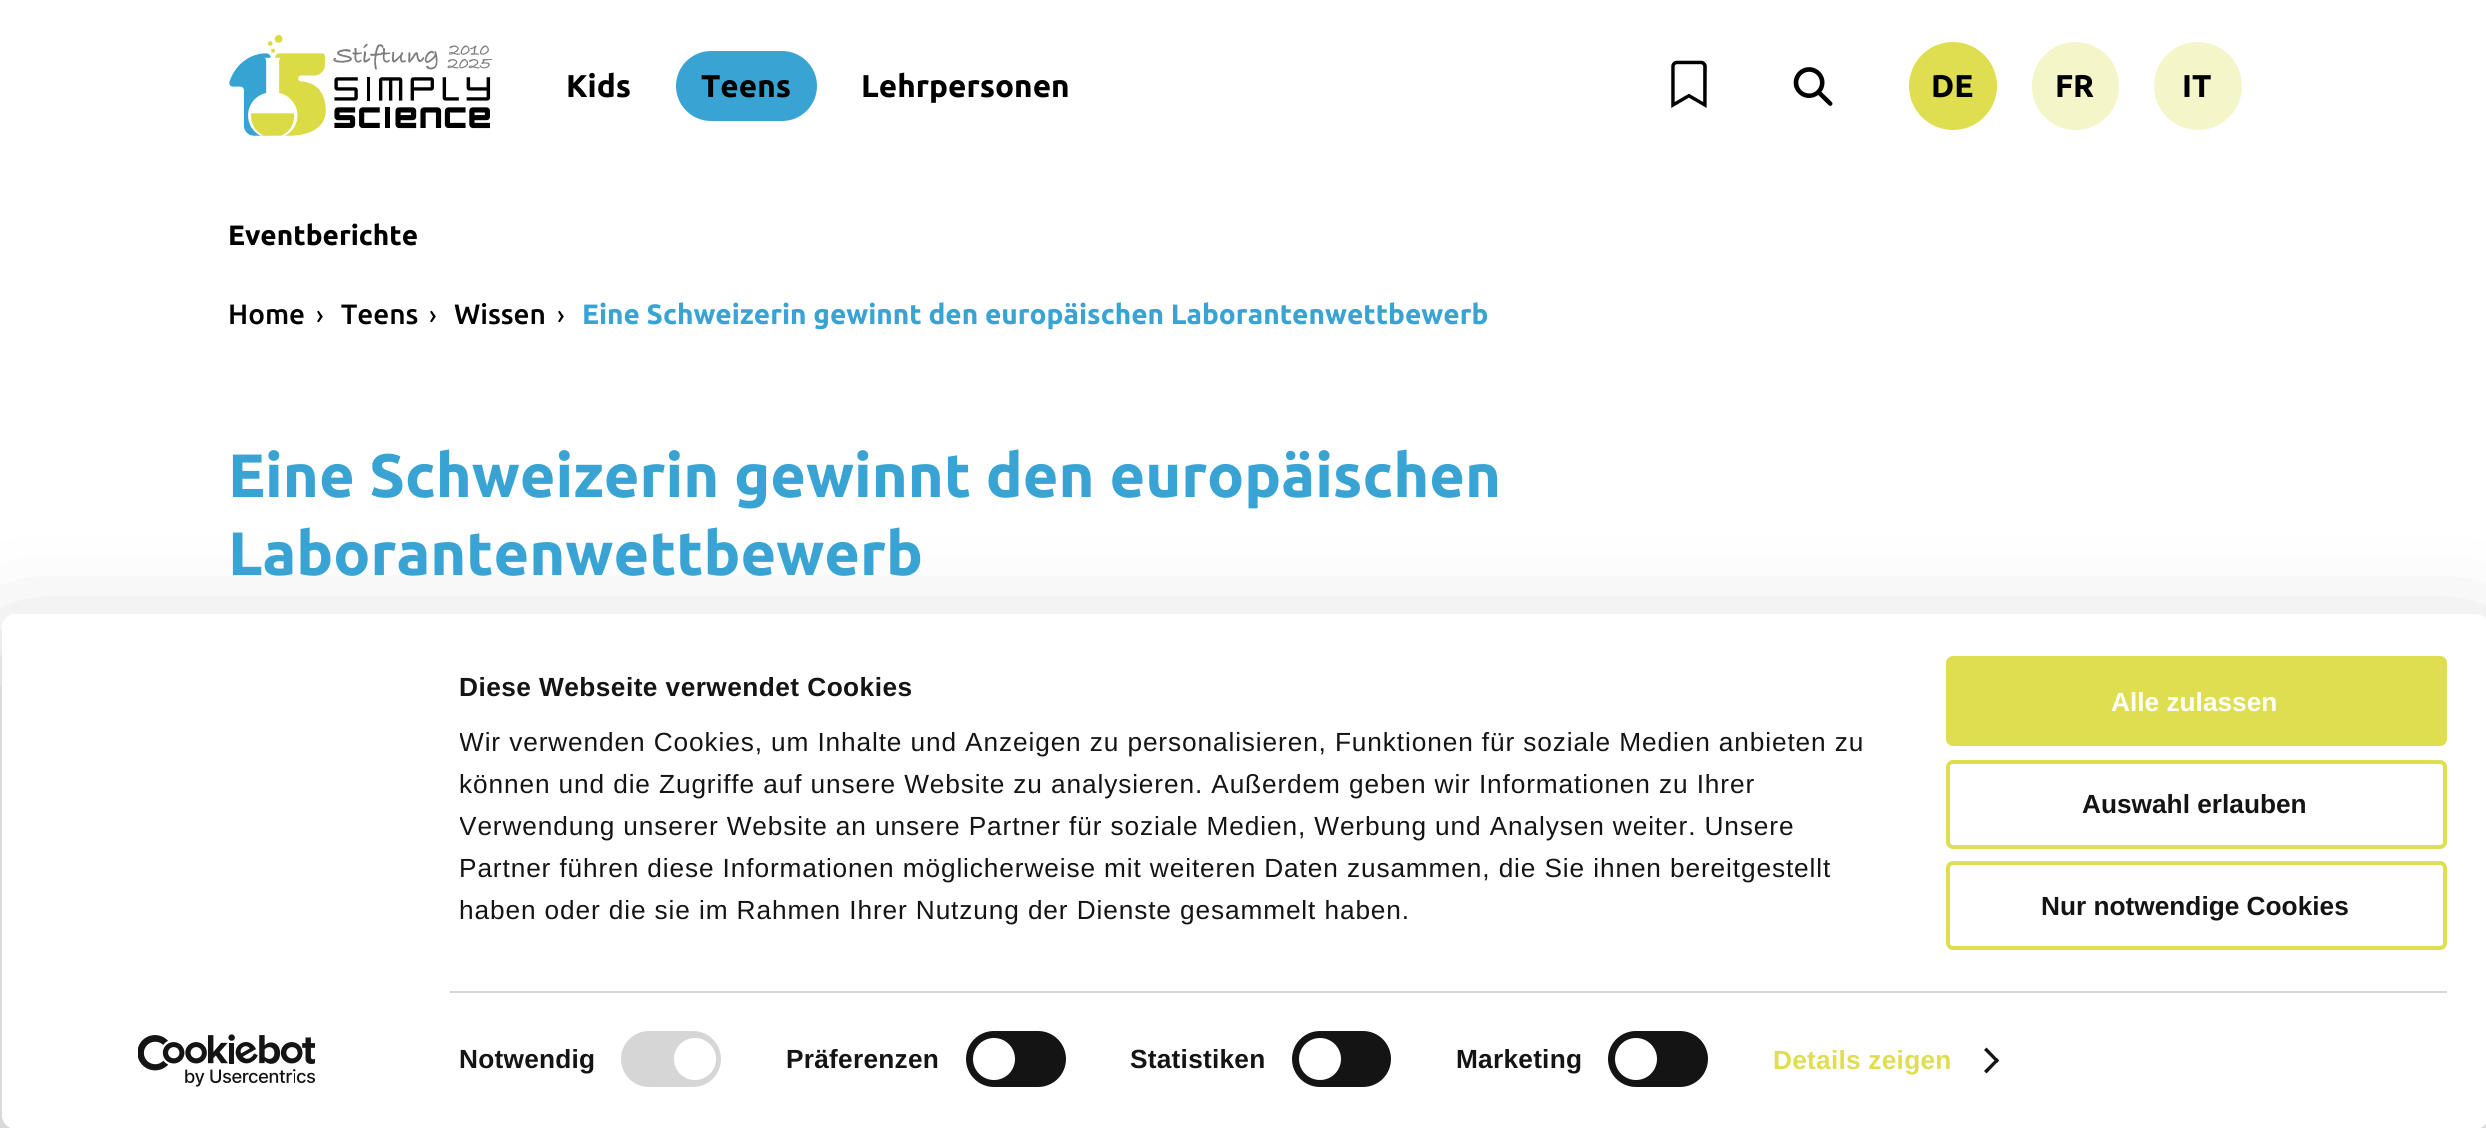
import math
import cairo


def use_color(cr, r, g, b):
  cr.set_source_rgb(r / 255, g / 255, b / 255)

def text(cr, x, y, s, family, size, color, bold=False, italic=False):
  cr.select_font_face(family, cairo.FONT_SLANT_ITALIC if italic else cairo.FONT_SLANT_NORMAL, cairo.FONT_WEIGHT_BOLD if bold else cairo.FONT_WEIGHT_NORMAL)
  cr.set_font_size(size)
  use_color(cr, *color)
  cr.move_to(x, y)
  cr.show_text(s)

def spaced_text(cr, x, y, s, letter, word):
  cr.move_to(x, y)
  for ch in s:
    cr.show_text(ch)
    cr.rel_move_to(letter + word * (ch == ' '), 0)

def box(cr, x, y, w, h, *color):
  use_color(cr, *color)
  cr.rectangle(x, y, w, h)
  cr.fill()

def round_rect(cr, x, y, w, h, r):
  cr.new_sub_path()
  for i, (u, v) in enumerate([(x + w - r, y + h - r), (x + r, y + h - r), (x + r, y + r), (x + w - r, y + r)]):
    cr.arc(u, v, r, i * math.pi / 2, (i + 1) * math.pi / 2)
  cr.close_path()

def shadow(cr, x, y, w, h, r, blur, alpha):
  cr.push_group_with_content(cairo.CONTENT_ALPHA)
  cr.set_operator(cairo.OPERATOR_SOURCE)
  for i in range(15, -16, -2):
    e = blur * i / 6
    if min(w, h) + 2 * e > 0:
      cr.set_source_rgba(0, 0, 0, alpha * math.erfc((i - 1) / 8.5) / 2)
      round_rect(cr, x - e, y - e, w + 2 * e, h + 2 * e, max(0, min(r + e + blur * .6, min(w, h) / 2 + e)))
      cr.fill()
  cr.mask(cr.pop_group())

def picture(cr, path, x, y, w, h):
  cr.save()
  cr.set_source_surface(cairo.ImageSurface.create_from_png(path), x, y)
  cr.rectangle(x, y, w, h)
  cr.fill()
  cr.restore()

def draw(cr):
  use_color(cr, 255, 255, 255)
  cr.paint()
  picture(cr, "img_01.png", 229, 35, 264, 101)
  use_color(cr, 57, 164, 211)
  round_rect(cr, 676, 51, 141, 70, 35)
  cr.fill()
  picture(cr, "img_02.png", 1671, 60, 36, 48)
  picture(cr, "img_03.png", 1793, 67, 40, 39)
  use_color(cr, 222, 222, 80)
  cr.arc(1953, 86, 44, 0, 2 * math.pi)
  cr.fill()
  use_color(cr, 245, 245, 202)
  round_rect(cr, 2032, 42, 87, 88, 43.5)
  cr.fill()
  cr.arc(2198, 86, 44, 0, 2 * math.pi)
  cr.fill()
  cr.save()
  cr.set_fill_rule(cairo.FILL_RULE_EVEN_ODD)
  cr.new_path()
  cr.move_to(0, 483)
  cr.line_to(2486, 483)
  cr.line_to(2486, 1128)
  cr.line_to(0, 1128)
  cr.close_path()
  cr.move_to(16, 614)
  cr.line_to(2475, 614)
  cr.curve_to(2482.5, 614, 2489, 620.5, 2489, 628)
  cr.line_to(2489, 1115)
  cr.curve_to(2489, 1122.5, 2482.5, 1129, 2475, 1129)
  cr.line_to(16, 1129)
  cr.curve_to(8.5, 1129, 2, 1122.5, 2, 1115)
  cr.line_to(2, 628)
  cr.curve_to(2, 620.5, 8.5, 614, 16, 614)
  cr.close_path()
  cr.clip()
  use_color(cr, 0, 0, 0)
  shadow(cr, 2, 667, 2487, 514, 14, 61, 0.3)
  cr.restore()
  use_color(cr, 255, 255, 255)
  round_rect(cr, 2, 614, 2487, 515, 14)
  cr.fill()
  box(cr, 450, 991, 1997, 2, 214, 214, 214)
  round_rect(cr, 621, 1031, 100, 56, 28)
  cr.fill()
  use_color(cr, 255, 255, 255)
  cr.arc(695, 1059, 21, 0, 2 * math.pi)
  cr.fill()
  use_color(cr, 20, 20, 20)
  round_rect(cr, 966, 1031, 100, 56, 28)
  cr.fill()
  use_color(cr, 255, 255, 255)
  cr.arc(994, 1059, 21, 0, 2 * math.pi)
  cr.fill()
  use_color(cr, 20, 20, 20)
  round_rect(cr, 1292, 1031, 99, 56, 28)
  cr.fill()
  use_color(cr, 255, 255, 255)
  cr.arc(1320, 1059, 21, 0, 2 * math.pi)
  cr.fill()
  use_color(cr, 20, 20, 20)
  round_rect(cr, 1608, 1031, 100, 56, 28)
  cr.fill()
  use_color(cr, 255, 255, 255)
  cr.arc(1636, 1059, 21, 0, 2 * math.pi)
  cr.fill()
  use_color(cr, 20, 20, 20)
  cr.new_path()
  cr.move_to(1986.5, 1047.5)
  cr.line_to(1999, 1060.5)
  cr.line_to(1997, 1063)
  cr.line_to(1984, 1050)
  cr.close_path()
  cr.fill()
  cr.new_path()
  cr.move_to(1997, 1058)
  cr.line_to(1999, 1060.5)
  cr.line_to(1986.5, 1073.5)
  cr.line_to(1984, 1071)
  cr.close_path()
  cr.fill()
  use_color(cr, 222, 222, 80)
  round_rect(cr, 1948, 658, 497, 86, 5)
  cr.fill_preserve()
  cr.set_line_width(4)
  cr.stroke()
  round_rect(cr, 1948, 762, 497, 85, 5)
  cr.stroke()
  round_rect(cr, 1948, 863, 497, 85, 5)
  cr.stroke()
  picture(cr, "img_04.png", 138, 1034, 177, 53)
  text(cr, 566, 97, "Kids", "Ubuntu", 31.5, (0, 0, 0), bold=True)
  text(cr, 701, 97, "Teens", "Ubuntu", 31.5, (0, 0, 0), bold=True)
  text(cr, 861, 97, "Lehrpersonen", "Ubuntu", 31.5, (0, 0, 0), bold=True)
  text(cr, 1931, 97, "DE", "Ubuntu", 31.5, (0, 0, 0), bold=True)
  text(cr, 2055, 97, "FR", "Ubuntu", 31.5, (0, 0, 0), bold=True)
  text(cr, 2182, 97, "IT", "Ubuntu", 31.5, (0, 0, 0), bold=True)
  text(cr, 228, 245, "Eventberichte", "Ubuntu", 28, (0, 0, 0), bold=True)
  text(cr, 228, 324, "Home", "Ubuntu Medium", 28, (0, 0, 0))
  text(cr, 316, 324, "›", "Ubuntu", 26.25, (0, 0, 0))
  text(cr, 341, 324, "Teens", "Ubuntu Medium", 28, (0, 0, 0))
  text(cr, 429, 324, "›", "Ubuntu", 26.25, (0, 0, 0))
  text(cr, 454, 324, "Wissen", "Ubuntu Medium", 28, (0, 0, 0))
  text(cr, 557, 324, "›", "Ubuntu", 26.25, (0, 0, 0))
  text(cr, 582, 324, "Eine Schweizerin gewinnt den europäischen Laborantenwettbewerb", "Ubuntu", 28, (57, 164, 211), bold=True)
  text(cr, 228, 497, "Eine Schweizerin gewinnt den europäischen", "Ubuntu", 61.25, (57, 164, 211), bold=True)
  text(cr, 228, 575, "Laborantenwettbewerb", "Ubuntu", 61.25, (57, 164, 211), bold=True)
  cr.select_font_face("Liberation Sans", cairo.FONT_SLANT_NORMAL, cairo.FONT_WEIGHT_BOLD)
  cr.set_font_size(26.25)
  use_color(cr, 20, 20, 20)
  spaced_text(cr, 459, 696, "Diese Webseite verwendet Cookies", 0.45, 0)
  cr.save()
  cr.rectangle(460, 667, 1435, 273)
  cr.clip()
  cr.select_font_face("Liberation Sans")
  spaced_text(cr, 459, 751, "Wir verwenden Cookies, um Inhalte und Anzeigen zu personalisieren, Funktionen für soziale Medien anbieten zu", 0.88, 0)
  cr.restore()
  cr.select_font_face("Liberation Sans")
  spaced_text(cr, 459, 793, "können und die Zugriffe auf unsere Website zu analysieren. Außerdem geben wir Informationen zu Ihrer", 0.88, 0)
  cr.save()
  cr.rectangle(460, 667, 1435, 273)
  cr.clip()
  spaced_text(cr, 459, 835, "Verwendung unserer Website an unsere Partner für soziale Medien, Werbung und Analysen weiter. Unsere", 0.88, 0)
  cr.restore()
  spaced_text(cr, 459, 877, "Partner führen diese Informationen möglicherweise mit weiteren Daten zusammen, die Sie ihnen bereitgestellt", 0.88, 0)
  spaced_text(cr, 459, 919, "haben oder die sie im Rahmen Ihrer Nutzung der Dienste gesammelt haben.", 0.88, 0)
  cr.select_font_face("Liberation Sans", cairo.FONT_SLANT_NORMAL, cairo.FONT_WEIGHT_BOLD)
  spaced_text(cr, 459, 1068, "Notwendig", 0.25, 0)
  spaced_text(cr, 786, 1068, "Präferenzen", 0.25, 0)
  spaced_text(cr, 1130, 1068, "Statistiken", 0.25, 0)
  spaced_text(cr, 1456, 1068, "Marketing", 0.25, 0)
  use_color(cr, 222, 222, 80)
  spaced_text(cr, 1773, 1069, "Details zeigen", 0.25, 0)
  text(cr, 2111, 711, "Alle zulassen", "Liberation Sans", 26.25, (255, 255, 255), bold=True)
  text(cr, 2082, 813, "Auswahl erlauben", "Liberation Sans", 26.25, (20, 20, 20), bold=True)
  text(cr, 2041, 915, "Nur notwendige Cookies", "Liberation Sans", 26.25, (20, 20, 20), bold=True)


surface = cairo.ImageSurface(cairo.FORMAT_RGB24, 2486, 1128)
cr = cairo.Context(surface)
options = cairo.FontOptions()
options.set_hint_metrics(cairo.HINT_METRICS_OFF)
options.set_hint_style(cairo.HINT_STYLE_NONE)
cr.set_font_options(options)
cr.set_miter_limit(4)
draw(cr)
surface.write_to_png("out.png")
